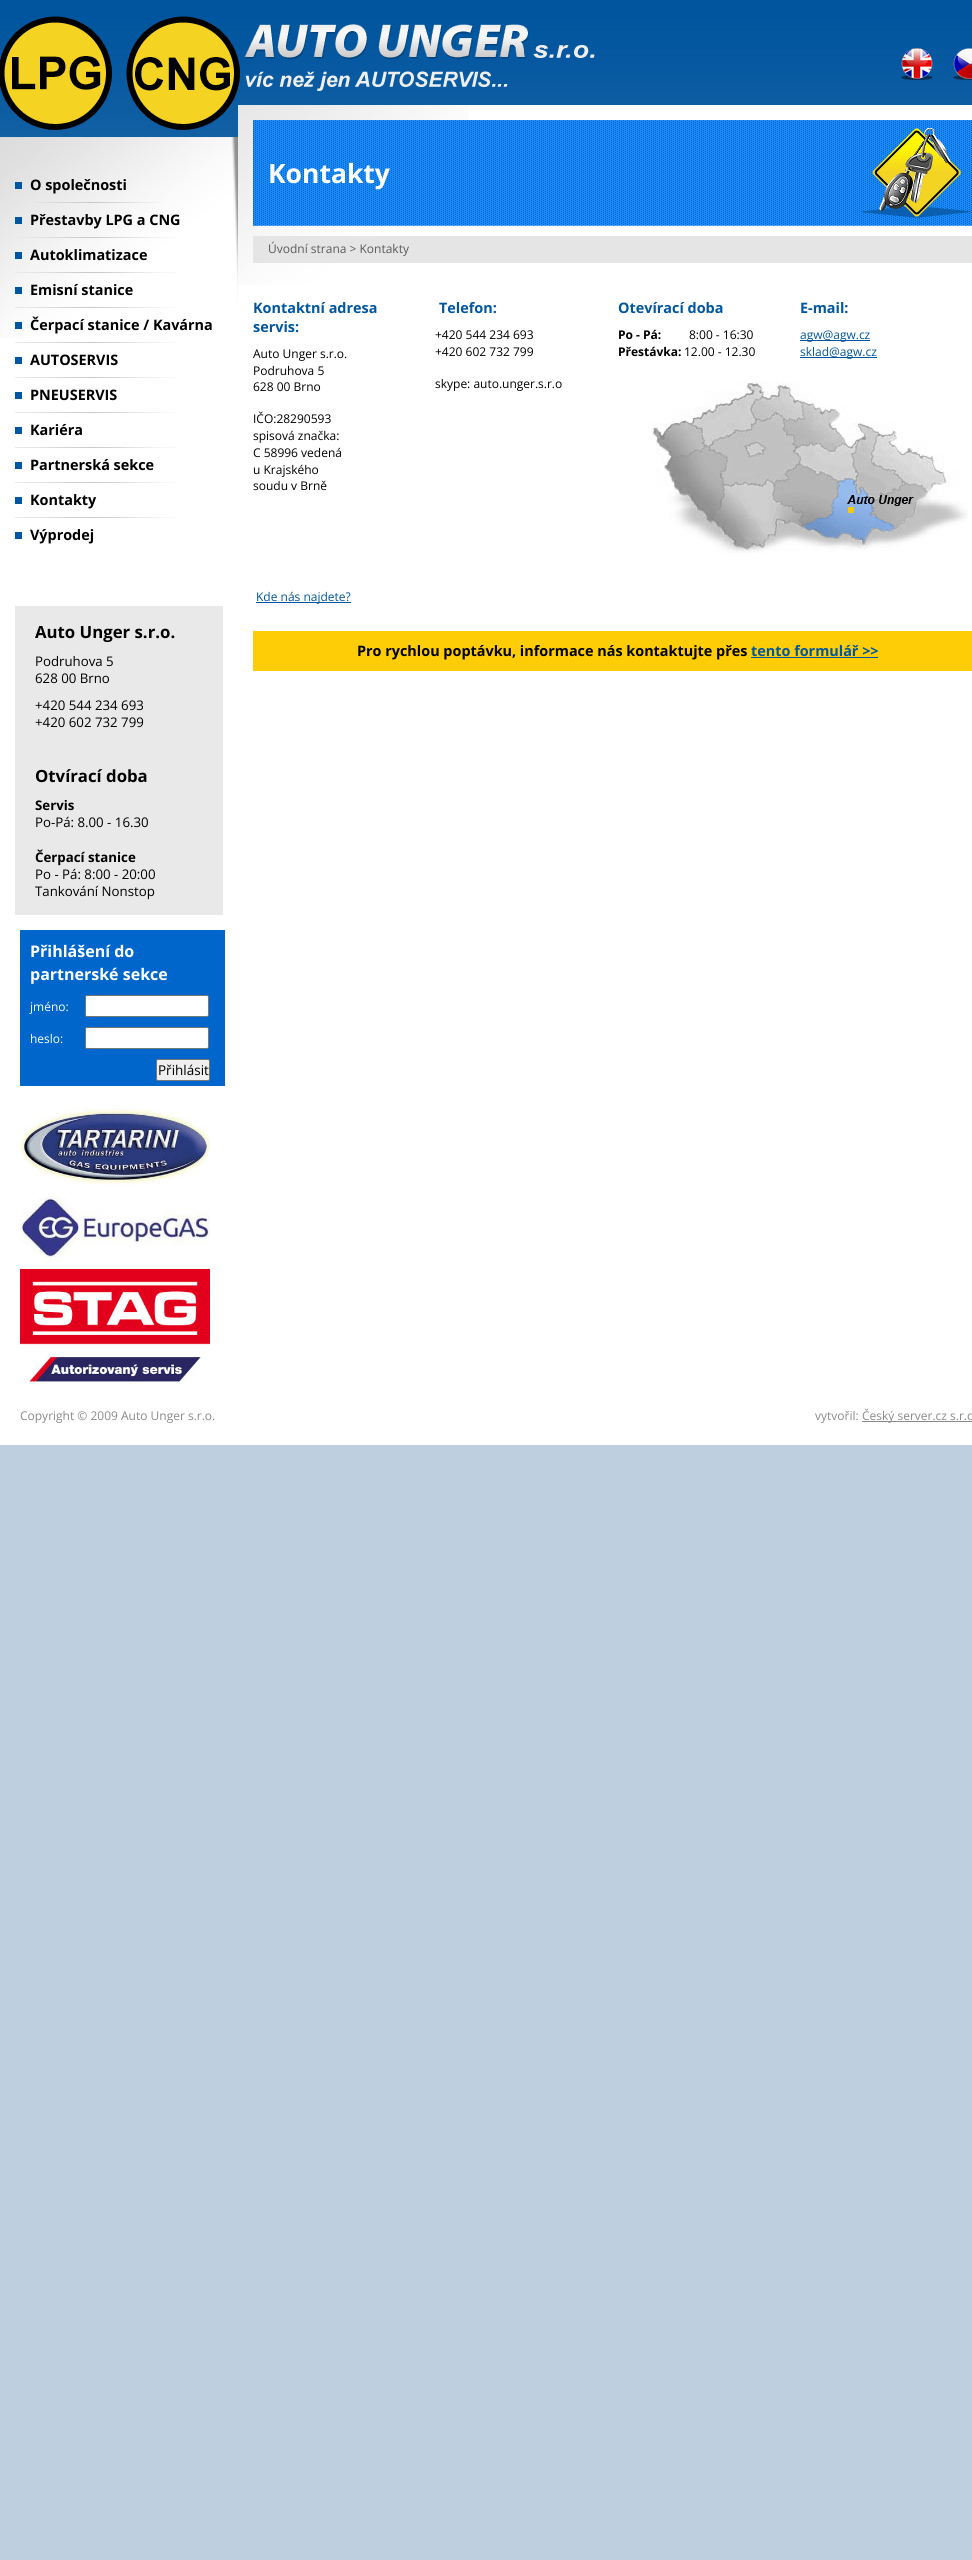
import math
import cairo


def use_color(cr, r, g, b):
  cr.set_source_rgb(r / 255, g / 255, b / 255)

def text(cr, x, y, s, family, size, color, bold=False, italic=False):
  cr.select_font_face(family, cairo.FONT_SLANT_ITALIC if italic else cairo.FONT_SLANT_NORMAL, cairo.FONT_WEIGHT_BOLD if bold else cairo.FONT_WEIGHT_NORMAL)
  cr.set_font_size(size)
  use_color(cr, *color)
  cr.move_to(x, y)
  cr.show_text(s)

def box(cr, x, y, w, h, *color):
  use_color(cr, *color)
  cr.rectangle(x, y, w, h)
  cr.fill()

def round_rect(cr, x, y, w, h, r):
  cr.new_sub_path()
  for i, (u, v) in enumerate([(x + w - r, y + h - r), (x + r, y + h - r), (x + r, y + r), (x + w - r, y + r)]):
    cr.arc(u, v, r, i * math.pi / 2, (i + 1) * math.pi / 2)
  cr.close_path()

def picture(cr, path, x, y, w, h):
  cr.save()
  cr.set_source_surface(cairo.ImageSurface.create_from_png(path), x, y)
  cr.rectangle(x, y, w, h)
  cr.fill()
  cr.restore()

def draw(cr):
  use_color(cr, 190, 207, 223)
  cr.paint()
  picture(cr, "img_01.png", 0, 0, 972, 137)
  picture(cr, "img_02.png", 0, 16, 595, 114)
  picture(cr, "img_03.png", 901, 48, 32, 32)
  picture(cr, "img_04.png", 953, 48, 19, 32)
  box(cr, 0, 338, 972, 1107, 255, 255, 255)
  picture(cr, "img_05.png", 0, 137, 238, 201)
  box(cr, 15, 182, 7, 7, 0, 86, 159)
  picture(cr, "img_06.png", 34, 202, 128, 1)
  box(cr, 15, 217, 7, 7, 0, 86, 159)
  picture(cr, "img_07.png", 19, 237, 157, 1)
  box(cr, 15, 252, 7, 7, 0, 86, 159)
  picture(cr, "img_08.png", 15, 272, 161, 1)
  box(cr, 15, 287, 7, 7, 0, 86, 159)
  picture(cr, "img_08.png", 15, 307, 161, 1)
  box(cr, 15, 322, 7, 7, 0, 86, 159)
  picture(cr, "img_08.png", 15, 342, 161, 1)
  box(cr, 15, 357, 7, 7, 0, 86, 159)
  picture(cr, "img_08.png", 15, 377, 161, 1)
  box(cr, 15, 392, 7, 7, 0, 86, 159)
  picture(cr, "img_08.png", 15, 412, 161, 1)
  box(cr, 15, 427, 7, 7, 0, 86, 159)
  picture(cr, "img_08.png", 15, 447, 161, 1)
  box(cr, 15, 462, 7, 7, 0, 86, 159)
  picture(cr, "img_08.png", 15, 482, 161, 1)
  box(cr, 15, 497, 7, 7, 0, 86, 159)
  picture(cr, "img_08.png", 15, 517, 161, 1)
  box(cr, 15, 532, 7, 7, 0, 86, 159)
  box(cr, 15, 606, 208, 309, 233, 233, 233)
  box(cr, 20, 930, 205, 156, 0, 102, 204)
  use_color(cr, 255, 255, 255)
  round_rect(cr, 85.5, 995.5, 123, 21, 1.5)
  cr.fill_preserve()
  use_color(cr, 118, 118, 118)
  cr.set_line_width(1)
  cr.stroke()
  use_color(cr, 255, 255, 255)
  round_rect(cr, 85.5, 1027.5, 123, 21, 1.5)
  cr.fill_preserve()
  use_color(cr, 118, 118, 118)
  cr.stroke()
  use_color(cr, 239, 239, 239)
  round_rect(cr, 156.5, 1059.5, 53, 21, 1.5)
  cr.fill_preserve()
  use_color(cr, 118, 118, 118)
  cr.stroke()
  picture(cr, "img_09.png", 20, 1108, 190, 77)
  picture(cr, "img_10.png", 20, 1196, 190, 67)
  picture(cr, "img_11.png", 20, 1269, 190, 116)
  box(cr, 238, 105, 734, 233, 255, 255, 255)
  picture(cr, "img_12.png", 238, 105, 230, 180)
  picture(cr, "img_13.png", 253, 120, 719, 106)
  box(cr, 253, 236, 719, 27, 229, 229, 229)
  box(cr, 800, 340, 70, 1, 0, 86, 159)
  box(cr, 800, 357, 77, 1, 0, 86, 159)
  picture(cr, "img_14.png", 649, 381, 319, 172)
  box(cr, 256, 602, 95, 1, 0, 86, 159)
  box(cr, 253, 631, 719, 40, 254, 205, 6)
  box(cr, 751, 657, 127, 1, 0, 86, 159)
  box(cr, 862, 1421, 110, 1, 138, 138, 138)
  text(cr, 30, 190, "O společnosti", "Open Sans", 14.4, (0, 0, 0), bold=True)
  text(cr, 30, 225, "Přestavby LPG a CNG", "Open Sans", 14.4, (0, 0, 0), bold=True)
  text(cr, 30, 260, "Autoklimatizace", "Open Sans", 14.4, (0, 0, 0), bold=True)
  text(cr, 30, 295, "Emisní stanice", "Open Sans", 14.4, (0, 0, 0), bold=True)
  text(cr, 30, 330, "Čerpací stanice / Kavárna", "Open Sans", 14.4, (0, 0, 0), bold=True)
  text(cr, 30, 365, "AUTOSERVIS", "Open Sans", 14.4, (0, 0, 0), bold=True)
  text(cr, 30, 400, "PNEUSERVIS", "Open Sans", 14.4, (0, 0, 0), bold=True)
  text(cr, 30, 435, "Kariéra", "Open Sans", 14.4, (0, 0, 0), bold=True)
  text(cr, 30, 470, "Partnerská sekce", "Open Sans", 14.4, (0, 0, 0), bold=True)
  text(cr, 30, 505, "Kontakty", "Open Sans", 14.4, (0, 0, 0), bold=True)
  text(cr, 30, 540, "Výprodej", "Open Sans", 14.4, (0, 0, 0), bold=True)
  text(cr, 35, 638, "Auto Unger s.r.o.", "Open Sans", 16.75, (0, 0, 0), bold=True)
  text(cr, 35, 666, "Podruhova 5", "Open Sans", 13.25, (0, 0, 0))
  text(cr, 35, 683, "628 00 Brno", "Open Sans", 13.25, (0, 0, 0))
  text(cr, 35, 710, "+420 544 234 693", "Open Sans", 13.25, (0, 0, 0))
  text(cr, 35, 727, "+420 602 732 799", "Open Sans", 13.25, (0, 0, 0))
  text(cr, 35, 782, "Otvírací doba", "Open Sans", 16.75, (0, 0, 0), bold=True)
  text(cr, 35, 810, "Servis", "Open Sans", 13.25, (0, 0, 0), bold=True)
  text(cr, 35, 827, "Po-Pá: 8.00 - 16.30", "Open Sans", 13.25, (0, 0, 0))
  text(cr, 35, 862, "Čerpací stanice", "Open Sans", 13.25, (0, 0, 0), bold=True)
  text(cr, 35, 879, "Po - Pá: 8:00 - 20:00", "Open Sans", 13.25, (0, 0, 0))
  text(cr, 35, 896, "Tankování Nonstop", "Open Sans", 13.25, (0, 0, 0))
  text(cr, 30, 957, "Přihlášení do", "Open Sans", 16, (255, 255, 255), bold=True)
  text(cr, 30, 980, "partnerské sekce", "Open Sans", 16, (255, 255, 255), bold=True)
  text(cr, 30, 1011, "jméno:", "Open Sans", 12, (255, 255, 255))
  text(cr, 30, 1043, "heslo:", "Open Sans", 12, (255, 255, 255))
  text(cr, 158, 1075, "Přihlásit", "Open Sans", 13.5, (0, 0, 0))
  text(cr, 268, 183, "Kontakty", "Open Sans", 26.5, (255, 255, 255), bold=True)
  text(cr, 268, 253, "Úvodní strana > Kontakty", "Open Sans", 12, (90, 90, 90))
  text(cr, 253, 313, "Kontaktní adresa", "Open Sans", 14.4, (0, 86, 159), bold=True)
  text(cr, 253, 332, "servis:", "Open Sans", 14.4, (0, 86, 159), bold=True)
  text(cr, 253, 358, "Auto Unger s.r.o.", "Open Sans", 12, (0, 0, 0))
  text(cr, 253, 375, "Podruhova 5", "Open Sans", 12, (0, 0, 0))
  text(cr, 253, 391, "628 00 Brno", "Open Sans", 12, (0, 0, 0))
  text(cr, 253, 423, "IČO:28290593", "Open Sans", 12, (0, 0, 0))
  text(cr, 253, 440, "spisová značka:", "Open Sans", 12, (0, 0, 0))
  text(cr, 253, 457, "C 58996 vedená", "Open Sans", 12, (0, 0, 0))
  text(cr, 253, 474, "u Krajského", "Open Sans", 12, (0, 0, 0))
  text(cr, 253, 490, "soudu v Brně", "Open Sans", 12, (0, 0, 0))
  text(cr, 439, 313, "Telefon:", "Open Sans", 14.4, (0, 86, 159), bold=True)
  text(cr, 435, 339, "+420 544 234 693", "Open Sans", 12, (0, 0, 0))
  text(cr, 435, 356, "+420 602 732 799", "Open Sans", 12, (0, 0, 0))
  text(cr, 618, 313, "Otevírací doba", "Open Sans", 14.4, (0, 86, 159), bold=True)
  text(cr, 618, 339, "Po - Pá:", "Open Sans", 12, (0, 0, 0), bold=True)
  text(cr, 689, 339, "8:00 - 16:30", "Open Sans", 12, (0, 0, 0))
  text(cr, 618, 356, "Přestávka:", "Open Sans", 12, (0, 0, 0), bold=True)
  text(cr, 684, 356, "12.00 - 12.30", "Open Sans", 12, (0, 0, 0))
  text(cr, 800, 313, "E-mail:", "Open Sans", 14.4, (0, 86, 159), bold=True)
  text(cr, 800, 339, "agw@agw.cz", "Open Sans", 12, (0, 86, 159))
  text(cr, 800, 356, "sklad@agw.cz", "Open Sans", 12, (0, 86, 159))
  text(cr, 435, 388, "skype: auto.unger.s.r.o", "Open Sans", 12, (0, 0, 0))
  text(cr, 256, 601, "Kde nás najdete?", "Open Sans", 12, (0, 86, 159))
  text(cr, 357, 656, "Pro rychlou poptávku, informace nás kontaktujte přes", "Open Sans", 14.4, (0, 0, 0), bold=True)
  text(cr, 751, 656, "tento formulář >>", "Open Sans", 14.4, (0, 86, 159), bold=True)
  text(cr, 20, 1420, "Copyright © 2009 Auto Unger s.r.o.", "Open Sans", 12, (138, 138, 138))
  text(cr, 815, 1420, "vytvořil:", "Open Sans", 12, (138, 138, 138))
  text(cr, 862, 1420, "Český server.cz s.r.o", "Open Sans", 12, (138, 138, 138))


surface = cairo.ImageSurface(cairo.FORMAT_RGB24, 972, 2560)
cr = cairo.Context(surface)
options = cairo.FontOptions()
options.set_hint_metrics(cairo.HINT_METRICS_OFF)
options.set_hint_style(cairo.HINT_STYLE_NONE)
cr.set_font_options(options)
cr.set_miter_limit(4)
draw(cr)
surface.write_to_png("out.png")
